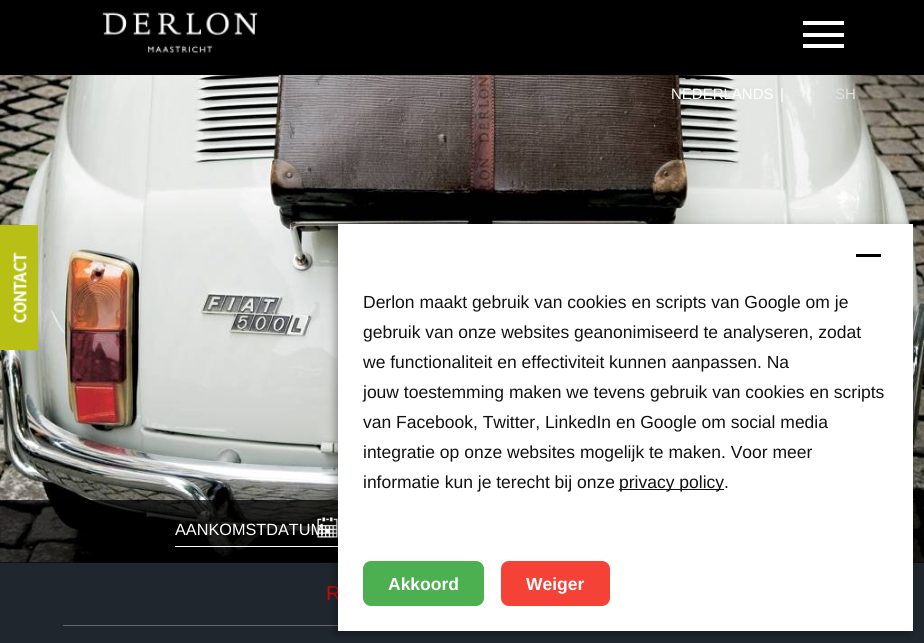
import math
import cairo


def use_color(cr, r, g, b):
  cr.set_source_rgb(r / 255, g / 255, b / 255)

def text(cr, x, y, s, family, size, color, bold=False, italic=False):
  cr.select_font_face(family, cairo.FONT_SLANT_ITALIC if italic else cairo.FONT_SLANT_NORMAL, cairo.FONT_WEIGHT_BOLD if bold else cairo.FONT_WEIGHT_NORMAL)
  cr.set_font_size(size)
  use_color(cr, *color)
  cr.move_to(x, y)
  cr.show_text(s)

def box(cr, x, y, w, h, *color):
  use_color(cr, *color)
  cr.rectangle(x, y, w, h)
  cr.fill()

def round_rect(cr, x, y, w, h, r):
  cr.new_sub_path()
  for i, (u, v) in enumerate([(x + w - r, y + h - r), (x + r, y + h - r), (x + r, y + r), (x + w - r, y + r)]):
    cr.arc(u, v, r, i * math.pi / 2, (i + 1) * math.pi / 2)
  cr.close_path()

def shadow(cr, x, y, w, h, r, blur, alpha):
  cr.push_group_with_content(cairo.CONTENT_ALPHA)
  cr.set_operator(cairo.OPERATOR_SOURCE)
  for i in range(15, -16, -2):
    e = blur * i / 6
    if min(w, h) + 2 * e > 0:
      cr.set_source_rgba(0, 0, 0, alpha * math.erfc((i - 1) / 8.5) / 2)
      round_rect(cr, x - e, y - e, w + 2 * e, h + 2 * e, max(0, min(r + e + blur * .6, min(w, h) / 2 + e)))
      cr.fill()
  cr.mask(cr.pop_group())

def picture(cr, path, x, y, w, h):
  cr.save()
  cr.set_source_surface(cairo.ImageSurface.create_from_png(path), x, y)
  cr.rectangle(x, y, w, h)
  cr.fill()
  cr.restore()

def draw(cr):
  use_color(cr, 31, 38, 45)
  cr.paint()
  box(cr, 0, 0, 924, 75, 0, 0, 0)
  picture(cr, "img_01.png", 102, 12, 156, 41)
  box(cr, 803, 21, 41, 4, 255, 255, 255)
  box(cr, 803, 33, 41, 4, 255, 255, 255)
  box(cr, 803, 44, 41, 4, 255, 255, 255)
  picture(cr, "img_03.png", 0, 75, 924, 488)
  box(cr, 0, 225, 38, 125, 184, 192, 22)
  picture(cr, "img_02.png", 13, 252, 14, 71)
  cr.set_source_rgba(0, 0, 0, 0.7)
  cr.rectangle(0, 500, 924, 63)
  cr.fill()
  box(cr, 175, 546, 163, 1, 255, 255, 255)
  box(cr, 63, 625, 275, 1, 102, 102, 102)
  text(cr, 671, 99, "NEDERLANDS", "Liberation Sans", 15, (255, 255, 255))
  text(cr, 780, 99, "|", "Liberation Sans", 15, (255, 255, 255))
  text(cr, 835, 99, "SH", "Liberation Sans", 15, (227, 227, 227))
  text(cr, 175, 535, "AANKOMSTDATUM", "Liberation Sans", 16.25, (255, 255, 255))
  picture(cr, "img_04.png", 317, 517, 21, 21)
  text(cr, 326, 600, "R", "Liberation Sans", 20, (213, 5, 5))
  use_color(cr, 0, 0, 0)
  shadow(cr, 335, 226, 575, 408, 0, 4, 0.3)
  box(cr, 338, 224, 575, 407, 255, 255, 255)
  box(cr, 856, 254, 25, 3, 0, 0, 0)
  text(cr, 363, 308, "Derlon maakt gebruik van cookies en scripts van Google om je", "Liberation Sans", 17.5, (17, 17, 17))
  text(cr, 363, 338, "gebruik van onze websites geanonimiseerd te analyseren, zodat", "Liberation Sans", 17.5, (17, 17, 17))
  text(cr, 363, 368, "we functionaliteit en effectiviteit kunnen aanpassen. Na", "Liberation Sans", 17.5, (17, 17, 17))
  text(cr, 363, 398, "jouw toestemming maken we tevens gebruik van cookies en scripts", "Liberation Sans", 17.5, (17, 17, 17))
  text(cr, 363, 428, "van Facebook, Twitter, LinkedIn en Google om social media", "Liberation Sans", 17.5, (17, 17, 17))
  text(cr, 363, 458, "integratie op onze websites mogelijk te maken. Voor meer", "Liberation Sans", 17.5, (17, 17, 17))
  text(cr, 363, 488, "informatie kun je terecht bij onze", "Liberation Sans", 17.5, (17, 17, 17))
  box(cr, 619, 489, 105, 1, 17, 17, 17)
  text(cr, 619, 488, "privacy policy.", "Liberation Sans", 17.5, (17, 17, 17))
  use_color(cr, 76, 175, 80)
  round_rect(cr, 363, 561, 121, 45, 8)
  cr.fill()
  text(cr, 388, 590, "Akkoord", "Liberation Sans", 17.5, (255, 255, 255), bold=True)
  use_color(cr, 244, 67, 54)
  round_rect(cr, 501, 561, 109, 45, 8)
  cr.fill()
  text(cr, 526, 590, "Weiger", "Liberation Sans", 17.5, (255, 255, 255), bold=True)


surface = cairo.ImageSurface(cairo.FORMAT_RGB24, 924, 643)
cr = cairo.Context(surface)
options = cairo.FontOptions()
options.set_hint_metrics(cairo.HINT_METRICS_OFF)
options.set_hint_style(cairo.HINT_STYLE_NONE)
cr.set_font_options(options)
cr.set_miter_limit(4)
draw(cr)
surface.write_to_png("out.png")
